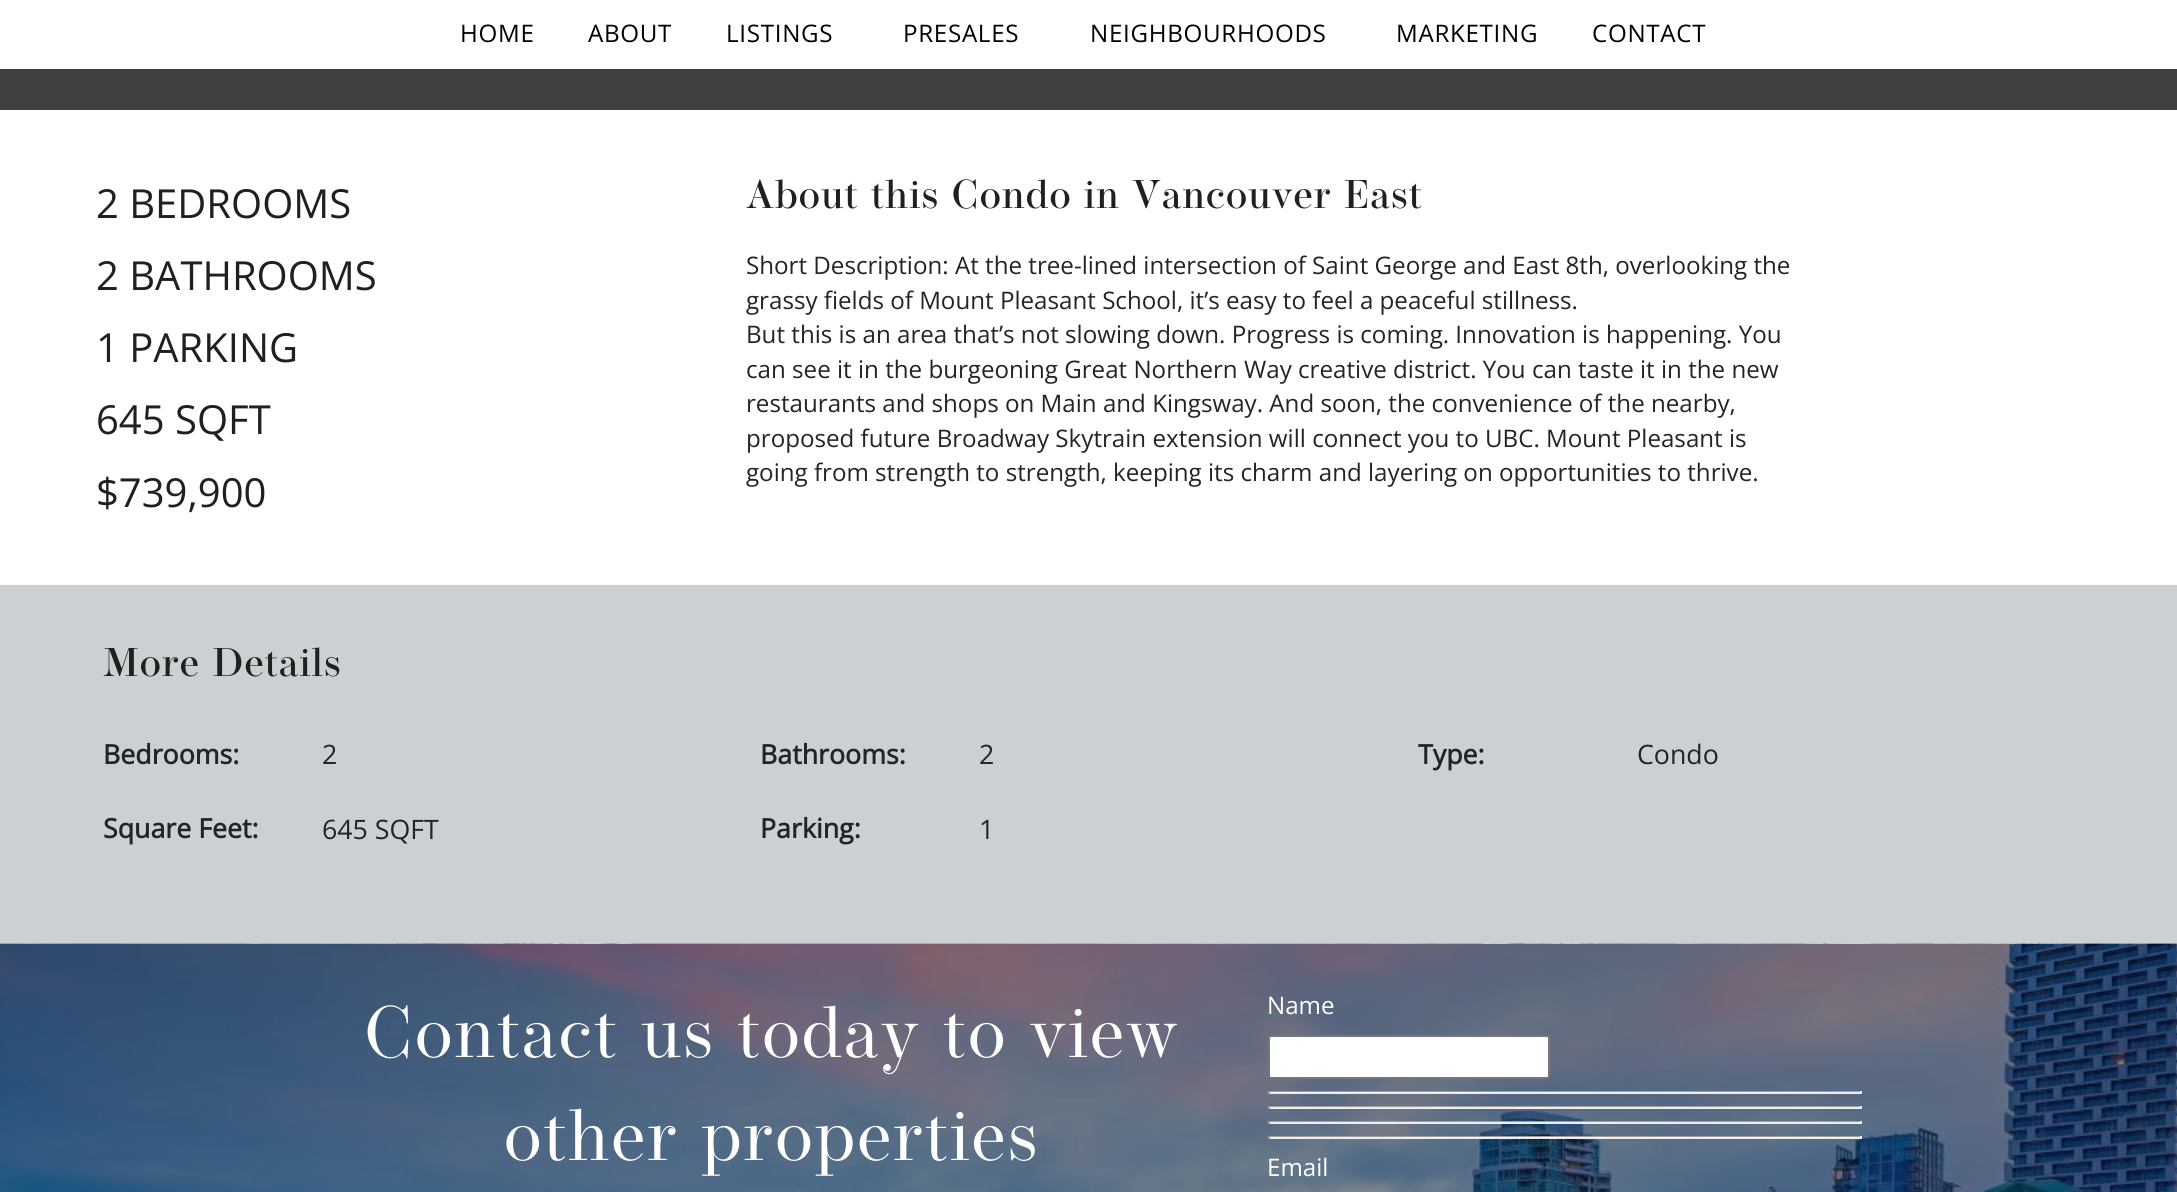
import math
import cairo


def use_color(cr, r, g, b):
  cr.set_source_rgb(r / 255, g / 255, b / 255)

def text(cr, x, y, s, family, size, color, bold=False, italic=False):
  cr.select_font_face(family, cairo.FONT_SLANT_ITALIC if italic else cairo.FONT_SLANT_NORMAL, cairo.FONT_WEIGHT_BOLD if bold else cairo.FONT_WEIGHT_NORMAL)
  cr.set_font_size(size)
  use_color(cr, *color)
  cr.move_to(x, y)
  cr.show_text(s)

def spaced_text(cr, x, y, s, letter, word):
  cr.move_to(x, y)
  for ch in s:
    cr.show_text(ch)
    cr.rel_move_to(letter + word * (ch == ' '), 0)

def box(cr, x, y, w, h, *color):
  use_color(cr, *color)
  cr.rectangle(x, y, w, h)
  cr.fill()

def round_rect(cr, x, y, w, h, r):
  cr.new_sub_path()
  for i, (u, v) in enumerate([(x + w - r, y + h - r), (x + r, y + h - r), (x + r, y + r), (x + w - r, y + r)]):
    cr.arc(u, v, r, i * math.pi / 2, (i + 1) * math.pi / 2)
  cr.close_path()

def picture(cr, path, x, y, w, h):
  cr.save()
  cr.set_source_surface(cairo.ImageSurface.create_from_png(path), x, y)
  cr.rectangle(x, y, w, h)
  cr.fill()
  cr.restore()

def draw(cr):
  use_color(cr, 64, 64, 64)
  cr.paint()
  box(cr, 0, 0, 2177, 69, 255, 255, 255)
  box(cr, 0, 110, 2177, 475, 255, 255, 255)
  box(cr, 0, 585, 2177, 359, 203, 209, 210)
  picture(cr, "img_01.png", 0, 943, 2177, 249)
  use_color(cr, 255, 255, 255)
  round_rect(cr, 1269, 1036, 280, 42, 2)
  cr.fill_preserve()
  use_color(cr, 118, 118, 118)
  cr.stroke()
  box(cr, 1268, 1091, 594, 1, 159, 159, 159)
  box(cr, 1860, 1091, 2, 3, 238, 238, 238)
  box(cr, 1268, 1092, 594, 2, 238, 238, 238)
  box(cr, 1268, 1091, 2, 3, 159, 159, 159)
  box(cr, 1268, 1106, 594, 1, 159, 159, 159)
  box(cr, 1860, 1106, 2, 3, 238, 238, 238)
  box(cr, 1268, 1107, 594, 2, 238, 238, 238)
  box(cr, 1268, 1106, 2, 3, 159, 159, 159)
  box(cr, 1268, 1121, 594, 1, 159, 159, 159)
  box(cr, 1860, 1121, 2, 3, 238, 238, 238)
  box(cr, 1268, 1122, 594, 2, 238, 238, 238)
  box(cr, 1268, 1121, 2, 3, 159, 159, 159)
  box(cr, 1268, 1136, 594, 1, 159, 159, 159)
  box(cr, 1860, 1136, 2, 3, 238, 238, 238)
  box(cr, 1268, 1137, 594, 2, 238, 238, 238)
  box(cr, 1268, 1136, 2, 3, 159, 159, 159)
  cr.select_font_face("Open Sans")
  cr.set_font_size(24.15)
  use_color(cr, 0, 0, 0)
  spaced_text(cr, 460, 42, "HOME", 0.7, 0)
  spaced_text(cr, 588, 42, "ABOUT", 0.7, 0)
  spaced_text(cr, 726, 42, "LISTINGS", 0.7, 0)
  spaced_text(cr, 903, 42, "PRESALES", 0.7, 0)
  spaced_text(cr, 1090, 42, "NEIGHBOURHOODS", 0.7, 0)
  spaced_text(cr, 1396, 42, "MARKETING", 0.7, 0)
  spaced_text(cr, 1592, 42, "CONTACT", 0.7, 0)
  text(cr, 96, 218, "2 BEDROOMS", "Open Sans", 40, (32, 32, 32))
  text(cr, 96, 290, "2 BATHROOMS", "Open Sans", 40, (32, 32, 32))
  text(cr, 96, 362, "1 PARKING", "Open Sans", 40, (32, 32, 32))
  text(cr, 96, 434, "645 SQFT", "Open Sans", 40, (32, 32, 32))
  text(cr, 96, 507, "$739,900", "Open Sans", 40, (32, 32, 32))
  cr.select_font_face("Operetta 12 Medium")
  spaced_text(cr, 746, 208, "About this Condo in Vancouver East", 1.1, 0)
  text(cr, 746, 274, "Short Description: At the tree-lined intersection of Saint George and East 8th, overlooking the", "Open Sans", 24.15, (33, 37, 41))
  text(cr, 746, 309, "grassy fields of Mount Pleasant School, it’s easy to feel a peaceful stillness.", "Open Sans", 24.15, (33, 37, 41))
  text(cr, 746, 343, "But this is an area that’s not slowing down. Progress is coming. Innovation is happening. You", "Open Sans", 24.15, (33, 37, 41))
  text(cr, 746, 378, "can see it in the burgeoning Great Northern Way creative district. You can taste it in the new", "Open Sans", 24.15, (33, 37, 41))
  text(cr, 746, 412, "restaurants and shops on Main and Kingsway. And soon, the convenience of the nearby,", "Open Sans", 24.15, (33, 37, 41))
  text(cr, 746, 447, "proposed future Broadway Skytrain extension will connect you to UBC. Mount Pleasant is", "Open Sans", 24.15, (33, 37, 41))
  text(cr, 746, 481, "going from strength to strength, keeping its charm and layering on opportunities to thrive.", "Open Sans", 24.15, (33, 37, 41))
  cr.select_font_face("Operetta 12 Medium")
  cr.set_font_size(40)
  use_color(cr, 32, 32, 32)
  spaced_text(cr, 103, 676, "More Details", 1.1, 0)
  text(cr, 103, 764, "Bedrooms:", "Open Sans", 26.75, (33, 37, 41), bold=True)
  text(cr, 322, 764, "2", "Open Sans", 26.75, (33, 37, 41))
  text(cr, 760, 764, "Bathrooms:", "Open Sans", 26.75, (33, 37, 41), bold=True)
  text(cr, 979, 764, "2", "Open Sans", 26.75, (33, 37, 41))
  text(cr, 1418, 764, "Type:", "Open Sans", 26.75, (33, 37, 41), bold=True)
  text(cr, 1637, 764, "Condo", "Open Sans", 26.75, (33, 37, 41))
  text(cr, 103, 838, "Square Feet:", "Open Sans", 26.75, (33, 37, 41), bold=True)
  text(cr, 322, 839, "645 SQFT", "Open Sans", 26.75, (33, 37, 41))
  text(cr, 760, 838, "Parking:", "Open Sans", 26.75, (33, 37, 41), bold=True)
  text(cr, 979, 839, "1", "Open Sans", 26.75, (33, 37, 41))
  cr.select_font_face("Operetta 12")
  cr.set_font_size(72)
  use_color(cr, 255, 255, 255)
  spaced_text(cr, 364, 1057, "Contact us today to view", 2, 0)
  spaced_text(cr, 504, 1160, "other properties", 2, 0)
  text(cr, 1267, 1014, "Name", "Open Sans", 24.15, (255, 255, 255))
  text(cr, 1267, 1176, "Email", "Open Sans", 24.15, (255, 255, 255))


surface = cairo.ImageSurface(cairo.FORMAT_RGB24, 2177, 1192)
cr = cairo.Context(surface)
options = cairo.FontOptions()
options.set_hint_metrics(cairo.HINT_METRICS_OFF)
options.set_hint_style(cairo.HINT_STYLE_NONE)
cr.set_font_options(options)
cr.set_miter_limit(4)
draw(cr)
surface.write_to_png("out.png")
